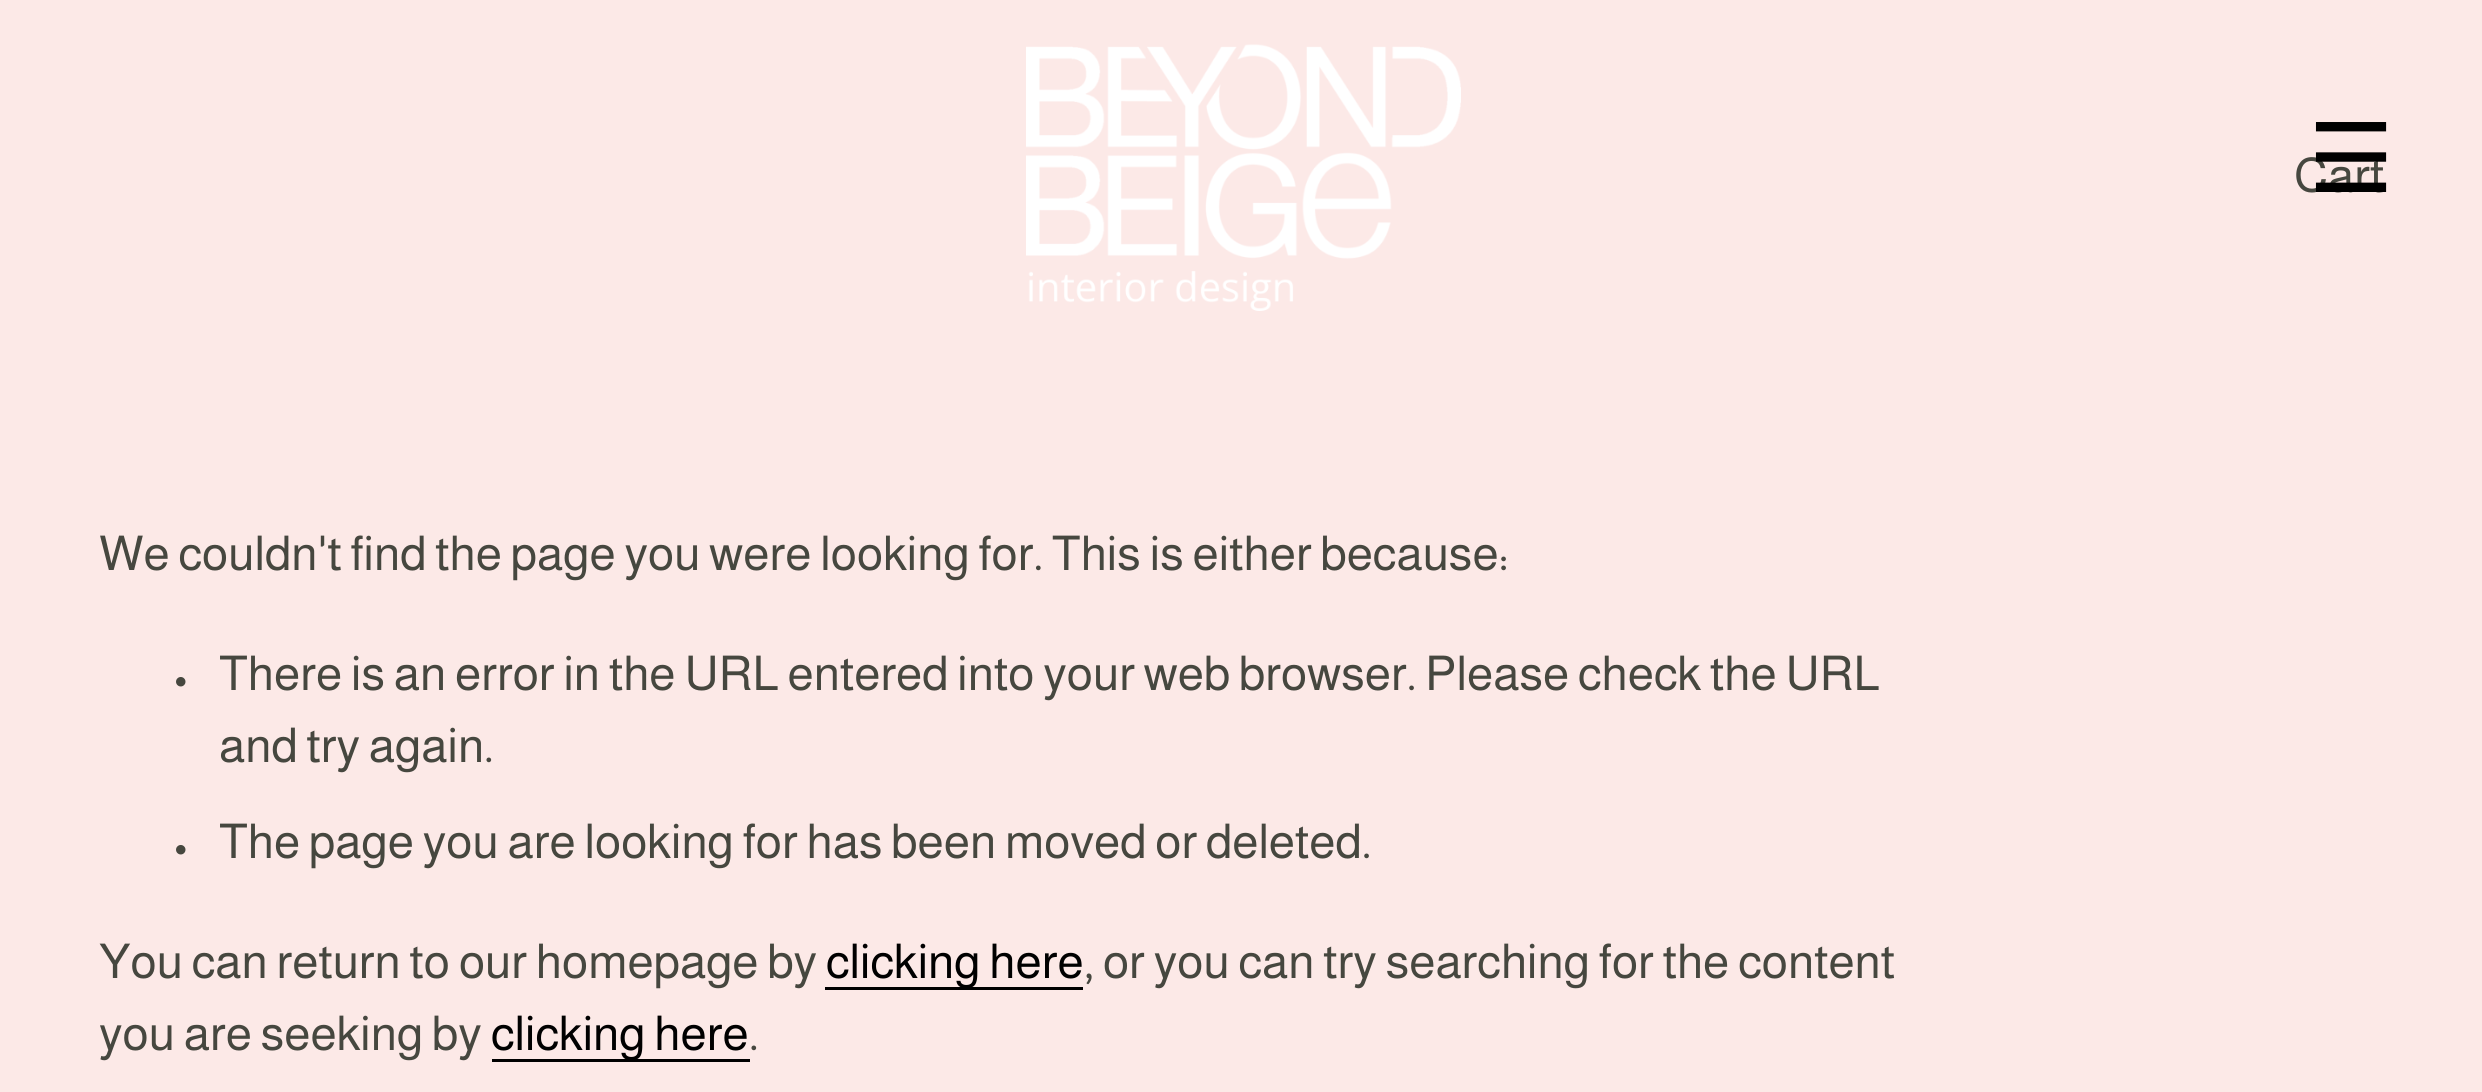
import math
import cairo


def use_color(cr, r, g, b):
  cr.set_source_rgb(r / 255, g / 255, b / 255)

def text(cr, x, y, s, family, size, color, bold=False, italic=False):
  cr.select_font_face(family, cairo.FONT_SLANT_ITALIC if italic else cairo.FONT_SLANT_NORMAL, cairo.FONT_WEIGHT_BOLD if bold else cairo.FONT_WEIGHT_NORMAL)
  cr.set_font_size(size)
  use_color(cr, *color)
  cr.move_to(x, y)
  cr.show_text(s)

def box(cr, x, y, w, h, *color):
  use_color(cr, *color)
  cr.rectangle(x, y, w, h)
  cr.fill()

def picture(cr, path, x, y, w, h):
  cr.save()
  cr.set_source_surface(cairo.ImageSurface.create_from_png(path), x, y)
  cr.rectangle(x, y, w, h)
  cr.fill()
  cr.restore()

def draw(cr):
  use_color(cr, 252, 233, 231)
  cr.paint()
  picture(cr, "img_01.png", 1026, 44, 435, 267)
  box(cr, 825, 987, 258, 3, 0, 0, 0)
  box(cr, 492, 1059, 258, 3, 0, 0, 0)
  text(cr, 2294, 192, "Cart", "Almarai", 48, (70, 71, 63))
  text(cr, 2308, 192, "☰", "DejaVu Sans", 96, (0, 0, 0))
  text(cr, 99, 570, "We couldn't find the page you were looking for. This is either because:", "Almarai", 48, (70, 71, 63))
  text(cr, 172, 690, "•", "Almarai", 48, (70, 71, 63))
  text(cr, 219, 690, "There is an error in the URL entered into your web browser. Please check the URL", "Almarai", 48, (70, 71, 63))
  text(cr, 219, 762, "and try again.", "Almarai", 48, (70, 71, 63))
  text(cr, 172, 858, "•", "Almarai", 48, (70, 71, 63))
  text(cr, 219, 858, "The page you are looking for has been moved or deleted.", "Almarai", 48, (70, 71, 63))
  text(cr, 99, 978, "You can return to our homepage by", "Almarai", 48, (70, 71, 63))
  text(cr, 826, 978, "clicking here", "Almarai", 48, (0, 0, 0))
  text(cr, 1084, 978, ", or you can try searching for the content", "Almarai", 48, (70, 71, 63))
  text(cr, 99, 1050, "you are seeking by", "Almarai", 48, (70, 71, 63))
  text(cr, 491, 1050, "clicking here", "Almarai", 48, (0, 0, 0))
  text(cr, 749, 1050, ".", "Almarai", 48, (70, 71, 63))


surface = cairo.ImageSurface(cairo.FORMAT_RGB24, 2482, 1092)
cr = cairo.Context(surface)
options = cairo.FontOptions()
options.set_hint_metrics(cairo.HINT_METRICS_OFF)
options.set_hint_style(cairo.HINT_STYLE_NONE)
cr.set_font_options(options)
cr.set_miter_limit(4)
draw(cr)
surface.write_to_png("out.png")
